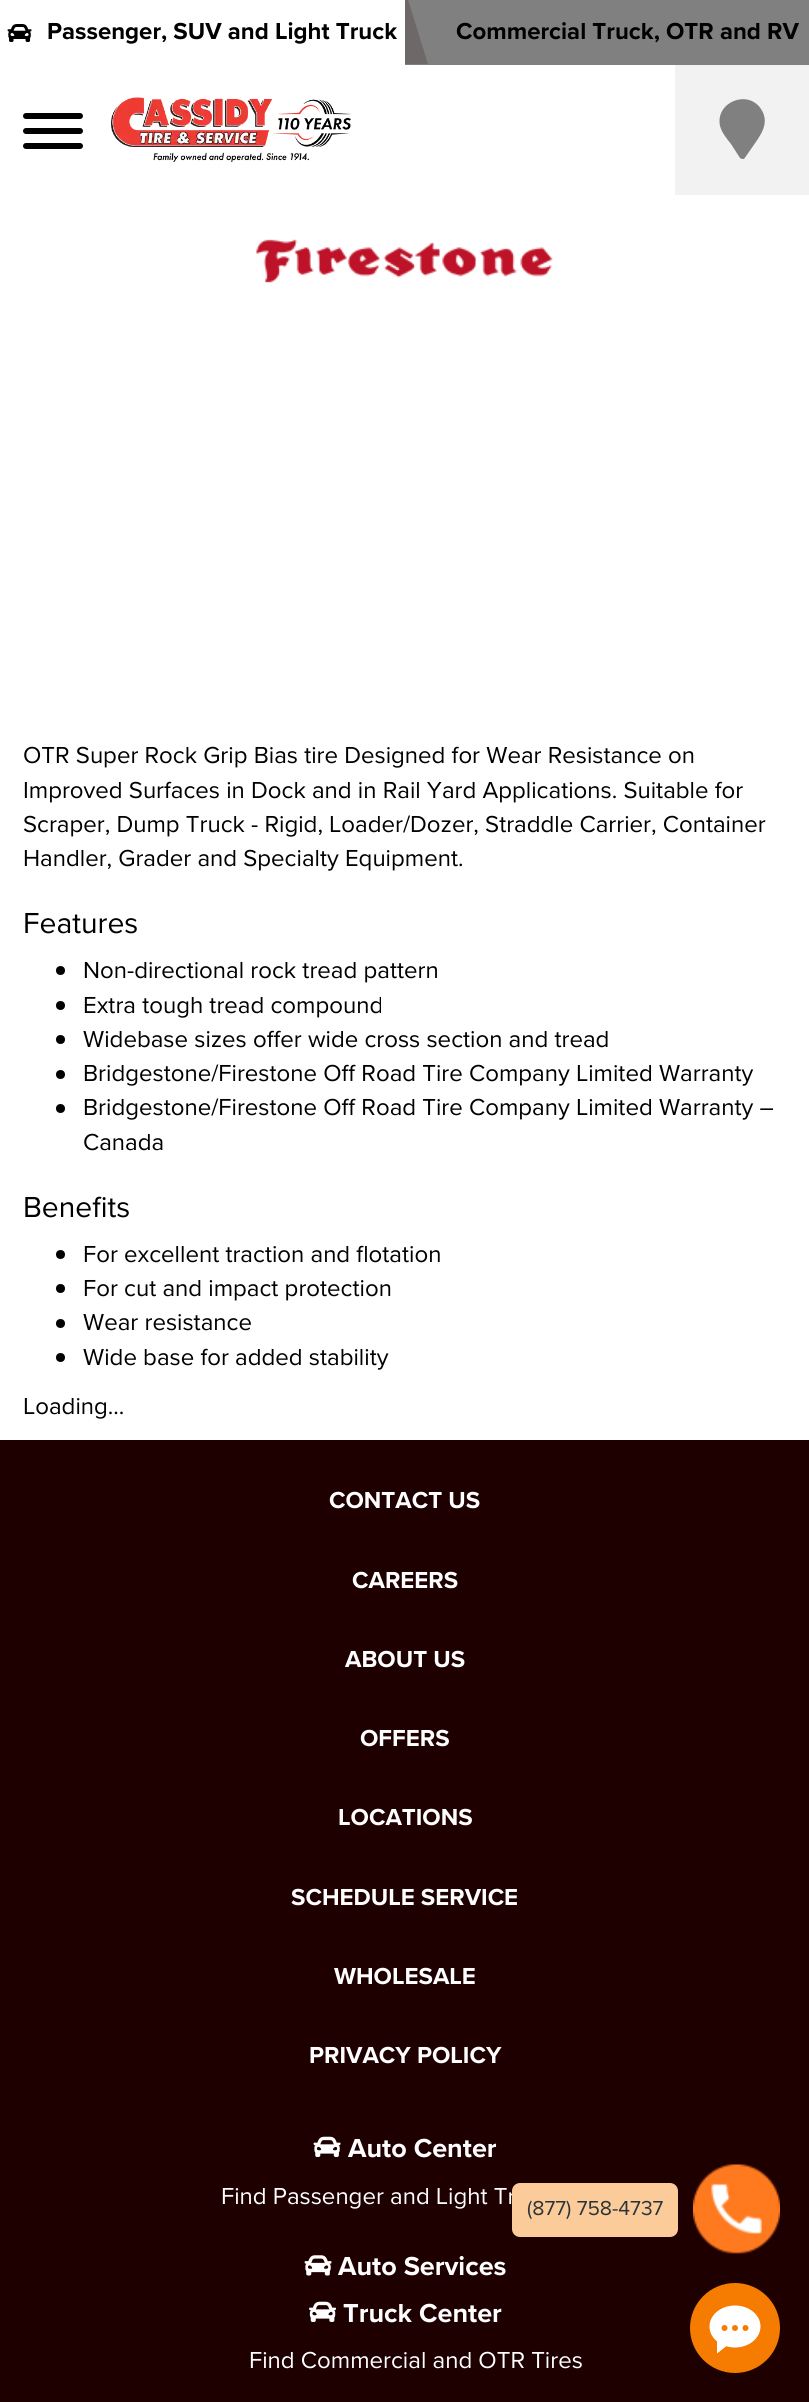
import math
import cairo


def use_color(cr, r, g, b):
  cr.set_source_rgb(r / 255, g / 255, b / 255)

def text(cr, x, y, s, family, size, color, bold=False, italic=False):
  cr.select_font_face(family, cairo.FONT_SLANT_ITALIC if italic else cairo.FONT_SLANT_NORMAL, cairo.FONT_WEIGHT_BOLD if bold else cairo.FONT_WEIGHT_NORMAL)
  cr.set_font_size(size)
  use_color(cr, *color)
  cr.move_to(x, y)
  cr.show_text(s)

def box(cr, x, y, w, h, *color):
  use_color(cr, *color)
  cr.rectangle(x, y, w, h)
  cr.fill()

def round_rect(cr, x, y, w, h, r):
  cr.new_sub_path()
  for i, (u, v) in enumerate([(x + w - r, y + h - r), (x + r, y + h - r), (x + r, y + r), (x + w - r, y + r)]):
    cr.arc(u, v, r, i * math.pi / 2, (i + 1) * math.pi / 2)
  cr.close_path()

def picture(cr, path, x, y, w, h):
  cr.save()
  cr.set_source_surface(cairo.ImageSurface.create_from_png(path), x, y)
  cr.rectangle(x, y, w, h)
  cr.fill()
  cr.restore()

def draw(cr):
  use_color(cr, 255, 255, 255)
  cr.paint()
  picture(cr, "img_01.png", 7, 24, 25, 18)
  box(cr, 405, 0, 404, 65, 128, 128, 128)
  use_color(cr, 110, 105, 104)
  cr.new_path()
  cr.move_to(405, 64)
  cr.line_to(405, -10)
  cr.line_to(428, 64)
  cr.close_path()
  cr.fill()
  use_color(cr, 0, 0, 0)
  round_rect(cr, 23, 128, 60, 6, 3)
  cr.fill()
  round_rect(cr, 23, 113, 60, 6, 3)
  cr.fill()
  round_rect(cr, 23, 143, 60, 6, 3)
  cr.fill()
  picture(cr, "img_02.png", 111, 97, 240, 65)
  box(cr, 675, 65, 134, 130, 242, 242, 242)
  use_color(cr, 128, 128, 128)
  cr.new_path()
  cr.move_to(740, 158)
  cr.line_to(731, 144)
  cr.curve_to(727, 139, 722, 133, 720, 126)
  cr.curve_to(715, 102, 748, 89, 761, 109)
  cr.curve_to(771, 124, 759, 137, 751, 149)
  cr.line_to(744, 159)
  cr.curve_to(743, 159, 741, 159, 740, 158)
  cr.close_path()
  cr.fill()
  picture(cr, "img_03.png", 256, 239, 297, 44)
  use_color(cr, 0, 0, 0)
  cr.arc(60.5, 970.5, 4.5, 0, 2 * math.pi)
  cr.fill()
  cr.arc(60.5, 1005.5, 4.5, 0, 2 * math.pi)
  cr.fill()
  cr.arc(60.5, 1039.5, 4.5, 0, 2 * math.pi)
  cr.fill()
  cr.arc(60.5, 1074.5, 4.5, 0, 2 * math.pi)
  cr.fill()
  cr.arc(60.5, 1108.5, 4.5, 0, 2 * math.pi)
  cr.fill()
  cr.arc(60.5, 1254.5, 4.5, 0, 2 * math.pi)
  cr.fill()
  cr.arc(60.5, 1288.5, 4.5, 0, 2 * math.pi)
  cr.fill()
  cr.arc(60.5, 1323.5, 4.5, 0, 2 * math.pi)
  cr.fill()
  cr.arc(60.5, 1357.5, 4.5, 0, 2 * math.pi)
  cr.fill()
  box(cr, 0, 1440, 809, 962, 31, 0, 1)
  picture(cr, "img_04.png", 313, 2136, 28, 21)
  picture(cr, "img_05.png", 304, 2255, 28, 21)
  picture(cr, "img_06.png", 309, 2301, 27, 21)
  picture(cr, "img_07.png", 693, 2164, 87, 90)
  picture(cr, "img_08.png", 690, 2283, 90, 90)
  text(cr, 47, 39, "Passenger, SUV and Light Truck", "Proxima Nova", 24, (0, 0, 0), bold=True)
  text(cr, 456, 39, "Commercial Truck, OTR and RV", "Proxima Nova", 24, (0, 0, 0), bold=True)
  text(cr, 23, 763, "OTR Super Rock Grip Bias tire Designed for Wear Resistance on", "Proxima Nova", 24, (0, 0, 0))
  text(cr, 23, 798, "Improved Surfaces in Dock and in Rail Yard Applications. Suitable for", "Proxima Nova", 24, (0, 0, 0))
  text(cr, 23, 832, "Scraper, Dump Truck - Rigid, Loader/Dozer, Straddle Carrier, Container", "Proxima Nova", 24, (0, 0, 0))
  text(cr, 23, 866, "Handler, Grader and Specialty Equipment.", "Proxima Nova", 24, (0, 0, 0))
  text(cr, 23, 933, "Features", "Proxima Nova", 30, (0, 0, 0))
  text(cr, 83, 978, "Non-directional rock tread pattern", "Proxima Nova", 24, (0, 0, 0))
  text(cr, 83, 1013, "Extra tough tread compound", "Proxima Nova", 24, (0, 0, 0))
  text(cr, 83, 1047, "Widebase sizes offer wide cross section and tread", "Proxima Nova", 24, (0, 0, 0))
  text(cr, 83, 1081, "Bridgestone/Firestone Off Road Tire Company Limited Warranty", "Proxima Nova", 24, (0, 0, 0))
  text(cr, 83, 1115, "Bridgestone/Firestone Off Road Tire Company Limited Warranty –", "Proxima Nova", 24, (0, 0, 0))
  text(cr, 83, 1150, "Canada", "Proxima Nova", 24, (0, 0, 0))
  text(cr, 23, 1217, "Benefits", "Proxima Nova", 30, (0, 0, 0))
  text(cr, 83, 1262, "For excellent traction and flotation", "Proxima Nova", 24, (0, 0, 0))
  text(cr, 83, 1296, "For cut and impact protection", "Proxima Nova", 24, (0, 0, 0))
  text(cr, 83, 1330, "Wear resistance", "Proxima Nova", 24, (0, 0, 0))
  text(cr, 83, 1365, "Wide base for added stability", "Proxima Nova", 24, (0, 0, 0))
  text(cr, 23, 1414, "Loading...", "Proxima Nova", 24, (0, 0, 0))
  text(cr, 329, 1508, "CONTACT US", "Proxima Nova", 24, (255, 255, 255), bold=True)
  text(cr, 352, 1588, "CAREERS", "Proxima Nova", 24, (255, 255, 255), bold=True)
  text(cr, 345, 1667, "ABOUT US", "Proxima Nova", 24, (255, 255, 255), bold=True)
  text(cr, 360, 1746, "OFFERS", "Proxima Nova", 24, (255, 255, 255), bold=True)
  text(cr, 338, 1825, "LOCATIONS", "Proxima Nova", 24, (255, 255, 255), bold=True)
  text(cr, 291, 1905, "SCHEDULE SERVICE", "Proxima Nova", 24, (255, 255, 255), bold=True)
  text(cr, 334, 1984, "WHOLESALE", "Proxima Nova", 24, (255, 255, 255), bold=True)
  text(cr, 309, 2063, "PRIVACY POLICY", "Proxima Nova", 24, (255, 255, 255), bold=True)
  text(cr, 348, 2157, "Auto Center", "Proxima Nova", 27, (255, 255, 255), bold=True)
  text(cr, 221, 2204, "Find Passenger and Light Tr", "Proxima Nova", 24, (255, 255, 255))
  text(cr, 338, 2275, "Auto Services", "Proxima Nova", 27, (255, 255, 255), bold=True)
  text(cr, 343, 2322, "Truck Center", "Proxima Nova", 27, (255, 255, 255), bold=True)
  text(cr, 249, 2368, "Find Commercial and OTR Tires", "Proxima Nova", 24, (255, 255, 255))
  use_color(cr, 251, 203, 153)
  round_rect(cr, 512, 2183, 166, 54, 8)
  cr.fill()
  text(cr, 527, 2215, "(877) 758-4737", "Proxima Nova", 21, (44, 52, 59))


surface = cairo.ImageSurface(cairo.FORMAT_RGB24, 809, 2402)
cr = cairo.Context(surface)
options = cairo.FontOptions()
options.set_hint_metrics(cairo.HINT_METRICS_OFF)
options.set_hint_style(cairo.HINT_STYLE_NONE)
cr.set_font_options(options)
cr.set_miter_limit(4)
draw(cr)
surface.write_to_png("out.png")
